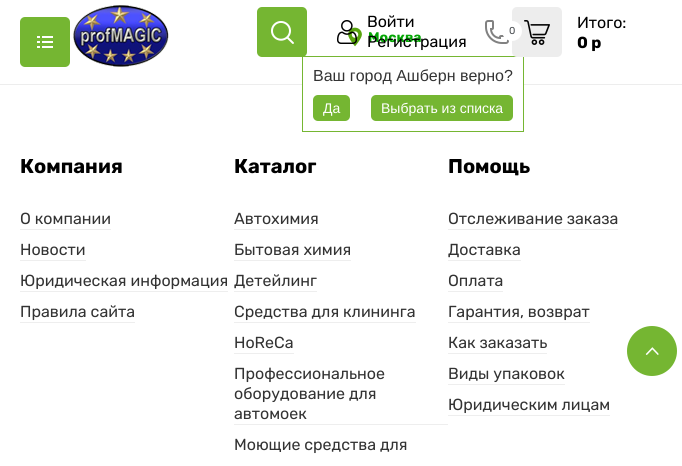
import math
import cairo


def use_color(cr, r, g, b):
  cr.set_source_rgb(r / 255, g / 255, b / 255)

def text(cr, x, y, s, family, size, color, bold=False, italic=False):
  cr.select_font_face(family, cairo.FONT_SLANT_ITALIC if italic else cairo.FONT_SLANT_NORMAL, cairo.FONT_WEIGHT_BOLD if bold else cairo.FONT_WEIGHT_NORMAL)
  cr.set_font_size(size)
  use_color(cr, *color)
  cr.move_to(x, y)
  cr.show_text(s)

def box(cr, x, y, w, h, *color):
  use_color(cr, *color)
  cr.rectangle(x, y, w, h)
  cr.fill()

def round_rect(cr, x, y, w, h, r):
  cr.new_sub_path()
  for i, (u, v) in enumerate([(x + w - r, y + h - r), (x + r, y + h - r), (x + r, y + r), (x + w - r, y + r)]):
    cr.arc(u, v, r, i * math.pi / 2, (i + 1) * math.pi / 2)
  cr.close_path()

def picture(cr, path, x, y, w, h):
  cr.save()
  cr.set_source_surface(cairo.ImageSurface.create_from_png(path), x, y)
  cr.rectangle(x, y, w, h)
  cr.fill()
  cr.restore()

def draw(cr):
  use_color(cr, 255, 255, 255)
  cr.paint()
  box(cr, 0, 84, 682, 1, 237, 237, 237)
  box(cr, 303, 84, 220, 1, 255, 255, 255)
  cr.rectangle(302.5, 56.5, 221, 75)
  use_color(cr, 117, 182, 50)
  cr.set_line_width(1)
  cr.stroke()
  round_rect(cr, 257, 7, 50, 50, 5)
  cr.fill()
  picture(cr, "img_01.png", 271, 21, 23, 23)
  picture(cr, "img_07.png", 348, 27, 14, 20)
  picture(cr, "img_02.png", 337, 20, 20, 24)
  use_color(cr, 237, 237, 237)
  round_rect(cr, 512, 7, 50, 50, 5)
  cr.fill()
  picture(cr, "img_06.png", 485, 20, 24, 24)
  use_color(cr, 255, 255, 255)
  cr.arc(512, 31, 10, 0, 2 * math.pi)
  cr.fill()
  picture(cr, "img_03.png", 524, 20, 26, 25)
  use_color(cr, 117, 182, 50)
  round_rect(cr, 20, 17, 50, 50, 5)
  cr.fill()
  picture(cr, "img_04.png", 37, 36, 16, 12)
  picture(cr, "img_05.png", 73, 5, 96, 62)
  round_rect(cr, 313, 95, 37, 26, 5)
  cr.fill()
  round_rect(cr, 371, 95, 142, 26, 5)
  cr.fill()
  box(cr, 20, 229, 91, 1, 238, 238, 238)
  box(cr, 20, 260, 66, 1, 238, 238, 238)
  box(cr, 20, 291, 208, 1, 238, 238, 238)
  box(cr, 20, 322, 115, 1, 238, 238, 238)
  box(cr, 234, 229, 85, 1, 238, 238, 238)
  box(cr, 234, 260, 117, 1, 238, 238, 238)
  box(cr, 234, 291, 83, 1, 238, 238, 238)
  box(cr, 234, 322, 182, 1, 238, 238, 238)
  box(cr, 234, 353, 60, 1, 238, 238, 238)
  box(cr, 234, 424, 214, 1, 238, 238, 238)
  box(cr, 448, 229, 170, 1, 238, 238, 238)
  box(cr, 448, 260, 73, 1, 238, 238, 238)
  box(cr, 448, 291, 55, 1, 238, 238, 238)
  box(cr, 448, 322, 142, 1, 238, 238, 238)
  box(cr, 448, 353, 99, 1, 238, 238, 238)
  box(cr, 448, 384, 117, 1, 238, 238, 238)
  box(cr, 448, 415, 162, 1, 238, 238, 238)
  use_color(cr, 117, 182, 50)
  cr.arc(652, 351, 25, 0, 2 * math.pi)
  cr.fill()
  picture(cr, "img_08.png", 645, 347, 14, 8)
  text(cr, 367, 27, "Войти", "Rubik", 16, (0, 0, 0))
  text(cr, 509, 34, "0", "Rubik", 10, (72, 76, 80))
  text(cr, 577, 28, "Итого:", "Rubik", 16, (0, 0, 0))
  text(cr, 577, 48, "0 р", "Rubik", 16, (0, 0, 0), bold=True)
  text(cr, 368, 42, "Москва", "Rubik", 14, (4, 166, 4), bold=True)
  text(cr, 367, 47, "Регистрация", "Rubik", 16, (0, 0, 0))
  text(cr, 313, 81, "Ваш город Ашберн верно?", "Liberation Sans", 16, (51, 51, 51))
  text(cr, 323, 113, "Да", "Liberation Sans", 14, (255, 255, 255))
  text(cr, 381, 113, "Выбрать из списка", "Liberation Sans", 14, (255, 255, 255))
  text(cr, 20, 173, "Компания", "Rubik", 20, (0, 0, 0), bold=True)
  text(cr, 20, 224, "О компании", "Rubik", 16, (51, 51, 51))
  text(cr, 20, 255, "Новости", "Rubik", 16, (51, 51, 51))
  text(cr, 20, 286, "Юридическая информация", "Rubik", 16, (51, 51, 51))
  text(cr, 20, 317, "Правила сайта", "Rubik", 16, (51, 51, 51))
  text(cr, 234, 173, "Каталог", "Rubik", 20, (0, 0, 0), bold=True)
  text(cr, 234, 224, "Автохимия", "Rubik", 16, (51, 51, 51))
  text(cr, 234, 255, "Бытовая химия", "Rubik", 16, (51, 51, 51))
  text(cr, 234, 286, "Детейлинг", "Rubik", 16, (51, 51, 51))
  text(cr, 234, 317, "Средства для клининга", "Rubik", 16, (51, 51, 51))
  text(cr, 234, 348, "HoReCa", "Rubik", 16, (51, 51, 51))
  text(cr, 234, 379, "Профессиональное", "Rubik", 16, (51, 51, 51))
  text(cr, 234, 399, "оборудование для", "Rubik", 16, (51, 51, 51))
  text(cr, 234, 419, "автомоек", "Rubik", 16, (51, 51, 51))
  text(cr, 234, 450, "Моющие средства для", "Rubik", 16, (51, 51, 51))
  text(cr, 448, 173, "Помощь", "Rubik", 20, (0, 0, 0), bold=True)
  text(cr, 448, 224, "Отслеживание заказа", "Rubik", 16, (51, 51, 51))
  text(cr, 448, 255, "Доставка", "Rubik", 16, (51, 51, 51))
  text(cr, 448, 286, "Оплата", "Rubik", 16, (51, 51, 51))
  text(cr, 448, 317, "Гарантия, возврат", "Rubik", 16, (51, 51, 51))
  text(cr, 448, 348, "Как заказать", "Rubik", 16, (51, 51, 51))
  text(cr, 448, 379, "Виды упаковок", "Rubik", 16, (51, 51, 51))
  text(cr, 448, 410, "Юридическим лицам", "Rubik", 16, (51, 51, 51))


surface = cairo.ImageSurface(cairo.FORMAT_RGB24, 682, 466)
cr = cairo.Context(surface)
options = cairo.FontOptions()
options.set_hint_metrics(cairo.HINT_METRICS_OFF)
options.set_hint_style(cairo.HINT_STYLE_NONE)
cr.set_font_options(options)
cr.set_miter_limit(4)
draw(cr)
surface.write_to_png("out.png")
